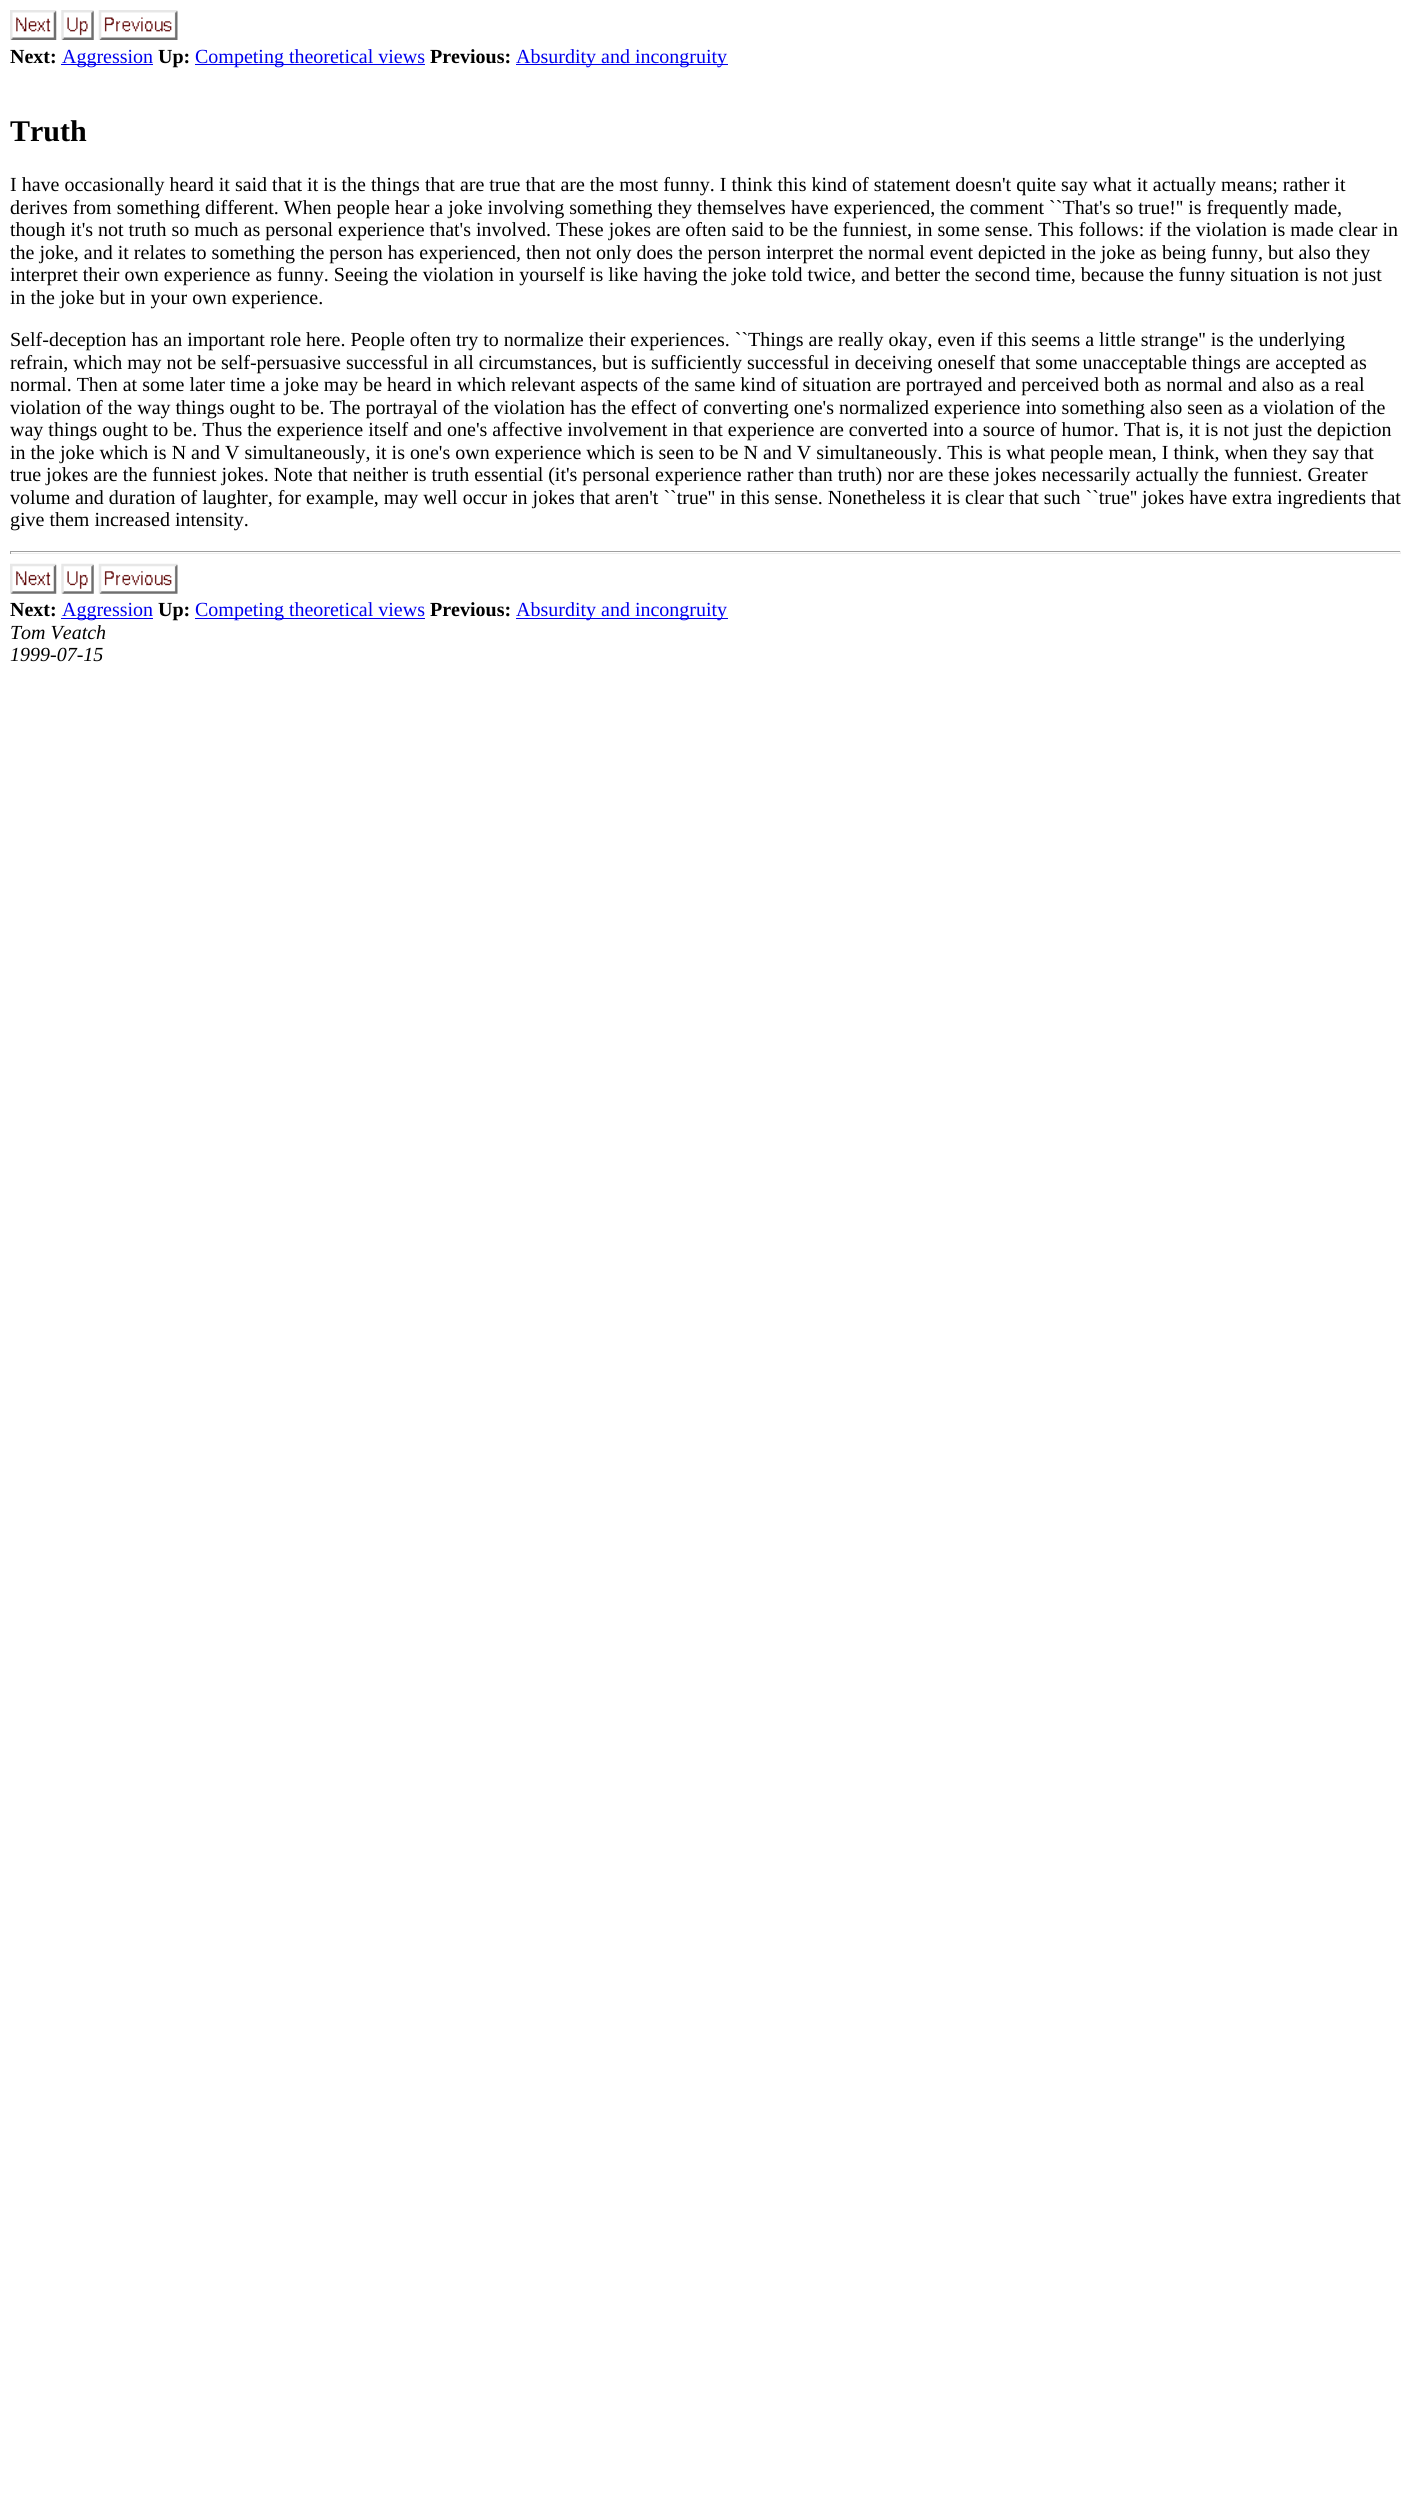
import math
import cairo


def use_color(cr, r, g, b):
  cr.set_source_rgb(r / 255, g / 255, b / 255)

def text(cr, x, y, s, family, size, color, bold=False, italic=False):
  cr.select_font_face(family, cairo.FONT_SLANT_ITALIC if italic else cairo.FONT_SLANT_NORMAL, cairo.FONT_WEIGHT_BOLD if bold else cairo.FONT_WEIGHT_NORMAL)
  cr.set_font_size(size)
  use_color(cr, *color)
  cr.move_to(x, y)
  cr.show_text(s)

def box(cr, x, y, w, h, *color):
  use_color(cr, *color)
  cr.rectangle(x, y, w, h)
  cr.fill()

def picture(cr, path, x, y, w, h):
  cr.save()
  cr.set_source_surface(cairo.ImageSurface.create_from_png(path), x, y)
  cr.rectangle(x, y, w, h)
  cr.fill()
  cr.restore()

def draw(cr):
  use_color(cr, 255, 255, 255)
  cr.paint()
  picture(cr, "img_01.png", 10, 10, 47, 30)
  picture(cr, "img_02.png", 61, 10, 33, 30)
  picture(cr, "img_03.png", 98, 10, 80, 30)
  box(cr, 61, 64, 92, 1, 0, 0, 238)
  box(cr, 195, 64, 230, 1, 0, 0, 238)
  box(cr, 516, 64, 212, 1, 0, 0, 238)
  box(cr, 10, 551, 1391, 1, 159, 159, 159)
  box(cr, 1400, 551, 1, 3, 238, 238, 238)
  box(cr, 10, 553, 1391, 1, 238, 238, 238)
  box(cr, 10, 551, 1, 3, 159, 159, 159)
  picture(cr, "img_04.png", 10, 563, 47, 31)
  picture(cr, "img_05.png", 61, 563, 33, 31)
  picture(cr, "img_06.png", 98, 563, 80, 31)
  box(cr, 61, 618, 92, 1, 0, 0, 238)
  box(cr, 195, 618, 230, 1, 0, 0, 238)
  box(cr, 516, 618, 212, 1, 0, 0, 238)
  text(cr, 10, 63, "Next:", "Liberation Serif", 20, (0, 0, 0), bold=True)
  text(cr, 62, 63, "Aggression", "Liberation Serif", 20, (0, 0, 238))
  text(cr, 158, 63, "Up:", "Liberation Serif", 20, (0, 0, 0), bold=True)
  text(cr, 195, 63, "Competing theoretical views", "Liberation Serif", 20, (0, 0, 238))
  text(cr, 430, 63, "Previous:", "Liberation Serif", 20, (0, 0, 0), bold=True)
  text(cr, 516, 63, "Absurdity and incongruity", "Liberation Serif", 20, (0, 0, 238))
  text(cr, 10, 141, "Truth", "Liberation Serif", 30, (0, 0, 0), bold=True)
  text(cr, 10, 191, "I have occasionally heard it said that it is the things that are true that are the most funny. I think this kind of statement doesn't quite say what it actually means; rather it", "Liberation Serif", 20, (0, 0, 0))
  text(cr, 10, 214, "derives from something different. When people hear a joke involving something they themselves have experienced, the comment ``That's so true!'' is frequently made,", "Liberation Serif", 20, (0, 0, 0))
  text(cr, 10, 236, "though it's not truth so much as personal experience that's involved. These jokes are often said to be the funniest, in some sense. This follows: if the violation is made clear in", "Liberation Serif", 20, (0, 0, 0))
  text(cr, 10, 259, "the joke, and it relates to something the person has experienced, then not only does the person interpret the normal event depicted in the joke as being funny, but also they", "Liberation Serif", 20, (0, 0, 0))
  text(cr, 10, 281, "interpret their own experience as funny. Seeing the violation in yourself is like having the joke told twice, and better the second time, because the funny situation is not just", "Liberation Serif", 20, (0, 0, 0))
  text(cr, 10, 304, "in the joke but in your own experience.", "Liberation Serif", 20, (0, 0, 0))
  text(cr, 10, 346, "Self-deception has an important role here. People often try to normalize their experiences. ``Things are really okay, even if this seems a little strange'' is the underlying", "Liberation Serif", 20, (0, 0, 0))
  text(cr, 10, 369, "refrain, which may not be self-persuasive successful in all circumstances, but is sufficiently successful in deceiving oneself that some unacceptable things are accepted as", "Liberation Serif", 20, (0, 0, 0))
  text(cr, 10, 391, "normal. Then at some later time a joke may be heard in which relevant aspects of the same kind of situation are portrayed and perceived both as normal and also as a real", "Liberation Serif", 20, (0, 0, 0))
  text(cr, 10, 414, "violation of the way things ought to be. The portrayal of the violation has the effect of converting one's normalized experience into something also seen as a violation of the", "Liberation Serif", 20, (0, 0, 0))
  text(cr, 10, 436, "way things ought to be. Thus the experience itself and one's affective involvement in that experience are converted into a source of humor. That is, it is not just the depiction", "Liberation Serif", 20, (0, 0, 0))
  text(cr, 10, 459, "in the joke which is N and V simultaneously, it is one's own experience which is seen to be N and V simultaneously. This is what people mean, I think, when they say that", "Liberation Serif", 20, (0, 0, 0))
  text(cr, 10, 481, "true jokes are the funniest jokes. Note that neither is truth essential (it's personal experience rather than truth) nor are these jokes necessarily actually the funniest. Greater", "Liberation Serif", 20, (0, 0, 0))
  text(cr, 10, 504, "volume and duration of laughter, for example, may well occur in jokes that aren't ``true'' in this sense. Nonetheless it is clear that such ``true'' jokes have extra ingredients that", "Liberation Serif", 20, (0, 0, 0))
  text(cr, 10, 526, "give them increased intensity.", "Liberation Serif", 20, (0, 0, 0))
  text(cr, 10, 616, "Next:", "Liberation Serif", 20, (0, 0, 0), bold=True)
  text(cr, 62, 616, "Aggression", "Liberation Serif", 20, (0, 0, 238))
  text(cr, 158, 616, "Up:", "Liberation Serif", 20, (0, 0, 0), bold=True)
  text(cr, 195, 616, "Competing theoretical views", "Liberation Serif", 20, (0, 0, 238))
  text(cr, 430, 616, "Previous:", "Liberation Serif", 20, (0, 0, 0), bold=True)
  text(cr, 516, 616, "Absurdity and incongruity", "Liberation Serif", 20, (0, 0, 238))
  text(cr, 10, 639, "Tom Veatch", "Liberation Serif", 20, (0, 0, 0), italic=True)
  text(cr, 10, 661, "1999-07-15", "Liberation Serif", 20, (0, 0, 0), italic=True)


surface = cairo.ImageSurface(cairo.FORMAT_RGB24, 1411, 2493)
cr = cairo.Context(surface)
options = cairo.FontOptions()
options.set_hint_metrics(cairo.HINT_METRICS_OFF)
options.set_hint_style(cairo.HINT_STYLE_NONE)
cr.set_font_options(options)
cr.set_miter_limit(4)
draw(cr)
surface.write_to_png("out.png")
